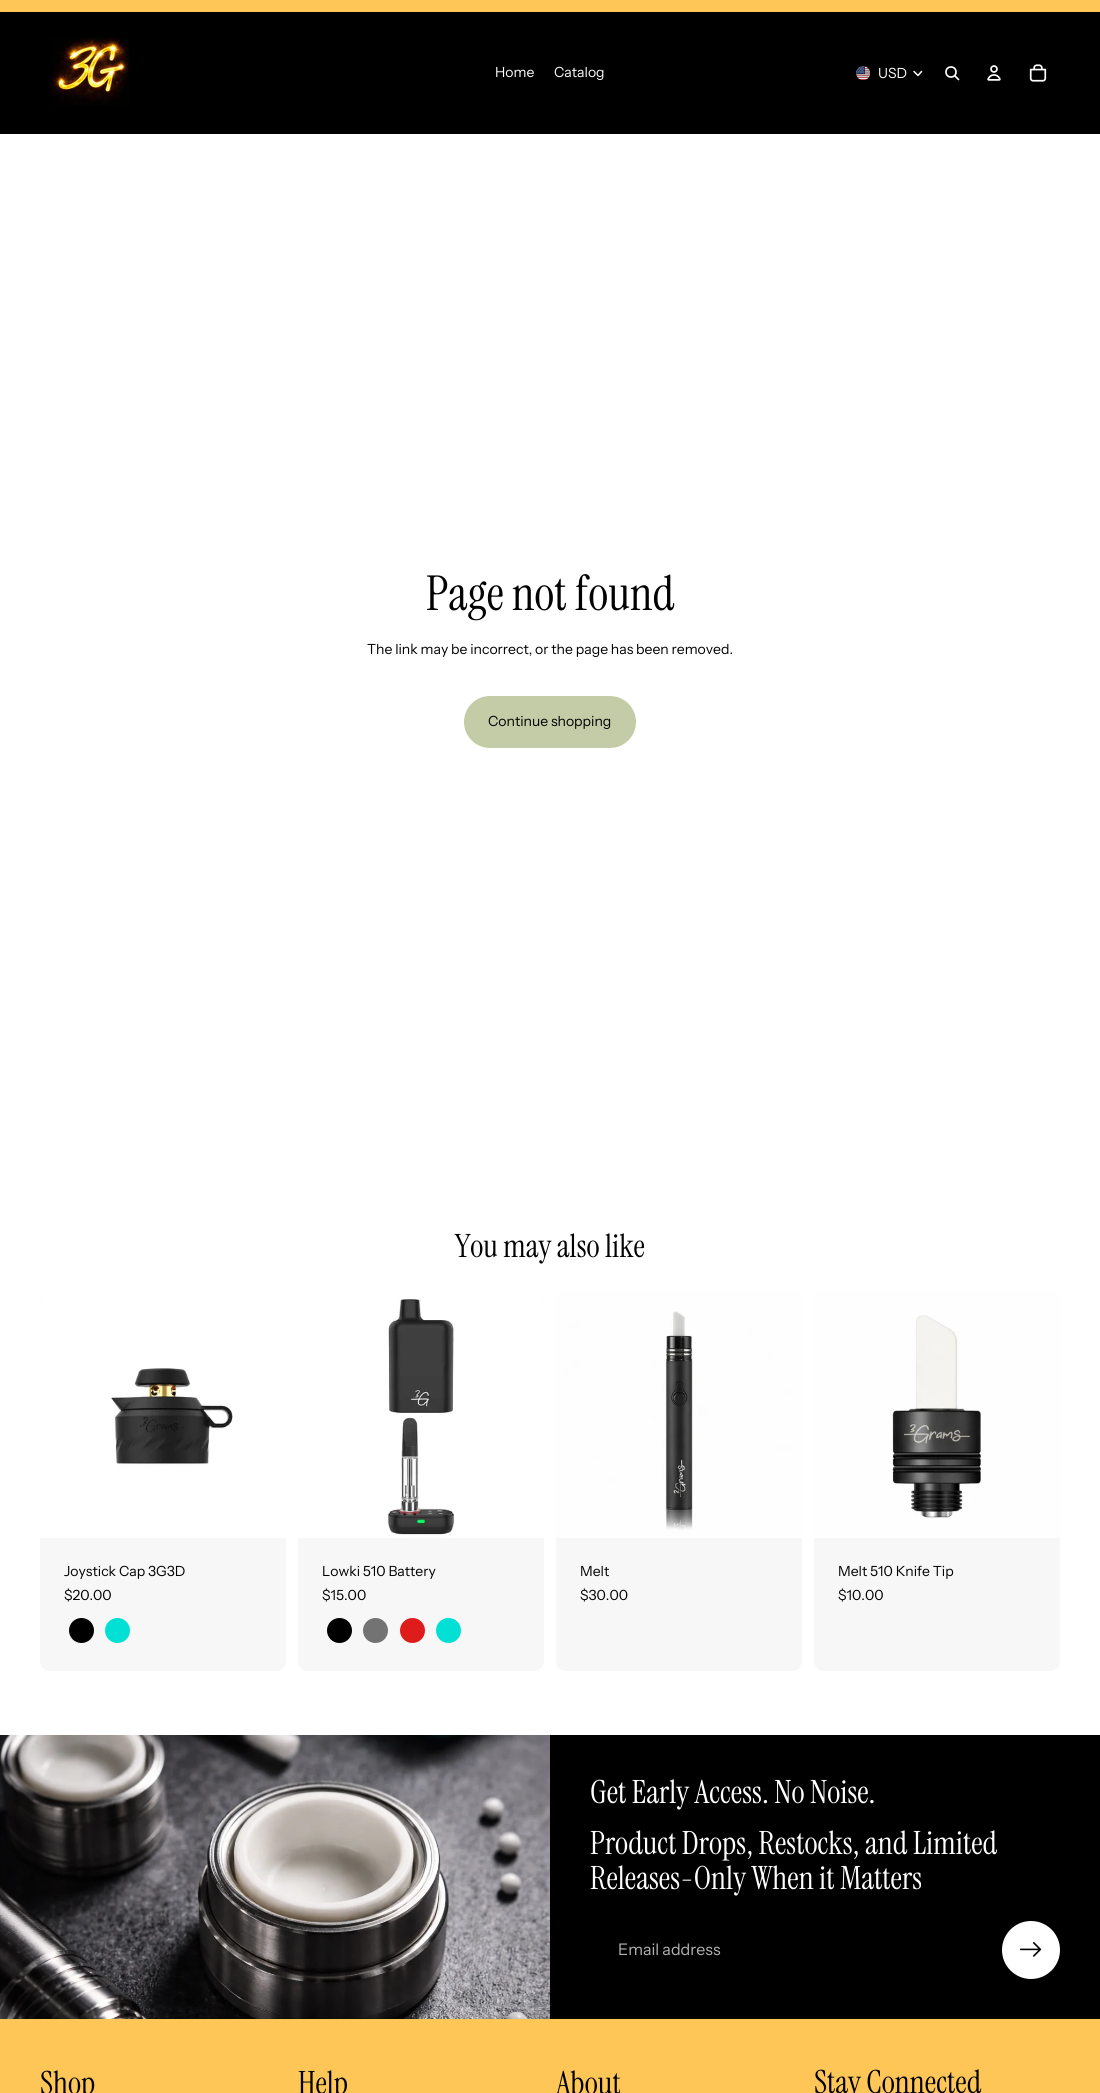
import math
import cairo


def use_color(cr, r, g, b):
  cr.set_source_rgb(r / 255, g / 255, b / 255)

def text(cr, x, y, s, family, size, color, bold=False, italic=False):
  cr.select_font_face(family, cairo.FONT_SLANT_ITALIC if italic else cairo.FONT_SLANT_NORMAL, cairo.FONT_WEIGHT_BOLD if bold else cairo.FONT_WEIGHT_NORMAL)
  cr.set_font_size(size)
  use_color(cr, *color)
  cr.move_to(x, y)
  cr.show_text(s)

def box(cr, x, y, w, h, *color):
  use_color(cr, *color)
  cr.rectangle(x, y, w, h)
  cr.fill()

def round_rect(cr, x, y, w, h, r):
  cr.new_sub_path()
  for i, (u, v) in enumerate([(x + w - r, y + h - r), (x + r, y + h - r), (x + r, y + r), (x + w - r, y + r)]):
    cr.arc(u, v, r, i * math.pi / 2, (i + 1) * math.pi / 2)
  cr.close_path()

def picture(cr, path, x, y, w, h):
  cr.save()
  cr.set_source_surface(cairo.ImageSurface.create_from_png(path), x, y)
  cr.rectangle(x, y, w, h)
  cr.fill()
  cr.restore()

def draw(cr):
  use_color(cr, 255, 255, 255)
  cr.paint()
  box(cr, 0, 0, 1100, 12, 253, 198, 86)
  box(cr, 0, 12, 1100, 122, 0, 0, 0)
  picture(cr, "img_01.png", 50, 37, 80, 69)
  picture(cr, "img_02.png", 856, 66, 14, 14)
  cr.new_path()
  cr.move_to(921.5, 71.5)
  cr.line_to(918, 75.5)
  cr.line_to(914, 71.5)
  use_color(cr, 255, 255, 255)
  cr.set_line_width(1.5)
  cr.set_line_cap(cairo.LINE_CAP_ROUND)
  cr.set_line_join(cairo.LINE_JOIN_ROUND)
  cr.stroke()
  cr.arc(951, 72, 5, 0, 2 * math.pi)
  cr.set_line_width(1.7)
  cr.set_line_cap(cairo.LINE_CAP_BUTT)
  cr.set_line_join(cairo.LINE_JOIN_MITER)
  cr.stroke()
  cr.new_path()
  cr.move_to(955, 76)
  cr.line_to(958.5, 79.5)
  cr.set_line_cap(cairo.LINE_CAP_ROUND)
  cr.set_line_join(cairo.LINE_JOIN_ROUND)
  cr.stroke()
  picture(cr, "img_03.png", 987, 65, 14, 16)
  picture(cr, "img_04.png", 1029, 64, 18, 18)
  use_color(cr, 195, 204, 166)
  round_rect(cr, 464, 696, 172, 52, 26)
  cr.fill()
  use_color(cr, 247, 247, 247)
  round_rect(cr, 40, 1292, 246, 379, 10)
  cr.fill()
  picture(cr, "img_05.png", 40, 1292, 246, 246)
  use_color(cr, 0, 0, 0)
  cr.arc(81.5, 1630.5, 12.5, 0, 2 * math.pi)
  cr.fill()
  cr.set_source_rgba(0, 0, 0, 0.1)
  cr.new_path()
  cr.move_to(81.5, 1618)
  cr.curve_to(98, 1618, 98, 1643, 81.5, 1643)
  cr.curve_to(65, 1643, 65, 1618, 81.5, 1618)
  cr.close_path()
  cr.fill()
  use_color(cr, 2, 247, 235)
  cr.arc(117.5, 1630.5, 12.5, 0, 2 * math.pi)
  cr.fill()
  cr.set_source_rgba(0, 0, 0, 0.1)
  cr.new_path()
  cr.move_to(117.5, 1618)
  cr.curve_to(134, 1618, 134, 1643, 117.5, 1643)
  cr.curve_to(101, 1643, 101, 1618, 117.5, 1618)
  cr.close_path()
  cr.fill()
  use_color(cr, 247, 247, 247)
  round_rect(cr, 298, 1292, 246, 379, 10)
  cr.fill()
  picture(cr, "img_06.png", 298, 1292, 246, 246)
  use_color(cr, 0, 0, 0)
  cr.arc(339.5, 1630.5, 12.5, 0, 2 * math.pi)
  cr.fill()
  cr.set_source_rgba(0, 0, 0, 0.1)
  cr.new_path()
  cr.move_to(339.5, 1618)
  cr.curve_to(356, 1618, 356, 1643, 339.5, 1643)
  cr.curve_to(323, 1643, 323, 1618, 339.5, 1618)
  cr.close_path()
  cr.fill()
  use_color(cr, 128, 128, 128)
  cr.arc(375.5, 1630.5, 12.5, 0, 2 * math.pi)
  cr.fill()
  cr.set_source_rgba(0, 0, 0, 0.1)
  cr.new_path()
  cr.move_to(375.5, 1618)
  cr.curve_to(392, 1618, 392, 1643, 375.5, 1643)
  cr.curve_to(359, 1643, 359, 1618, 375.5, 1618)
  cr.close_path()
  cr.fill()
  use_color(cr, 246, 31, 31)
  cr.arc(412.5, 1630.5, 12.5, 0, 2 * math.pi)
  cr.fill()
  cr.set_source_rgba(0, 0, 0, 0.1)
  cr.new_path()
  cr.move_to(412.5, 1618)
  cr.curve_to(429, 1618, 429, 1643, 412.5, 1643)
  cr.curve_to(396, 1643, 396, 1618, 412.5, 1618)
  cr.close_path()
  cr.fill()
  use_color(cr, 2, 247, 235)
  cr.arc(448.5, 1630.5, 12.5, 0, 2 * math.pi)
  cr.fill()
  cr.set_source_rgba(0, 0, 0, 0.1)
  cr.new_path()
  cr.move_to(448.5, 1618)
  cr.curve_to(465, 1618, 465, 1643, 448.5, 1643)
  cr.curve_to(432, 1643, 432, 1618, 448.5, 1618)
  cr.close_path()
  cr.fill()
  use_color(cr, 247, 247, 247)
  round_rect(cr, 556, 1292, 246, 379, 10)
  cr.fill()
  picture(cr, "img_07.png", 556, 1292, 246, 246)
  round_rect(cr, 814, 1292, 246, 379, 10)
  cr.fill()
  picture(cr, "img_08.png", 814, 1292, 246, 246)
  box(cr, 550, 1735, 550, 284, 0, 0, 0)
  picture(cr, "img_09.png", 0, 1735, 550, 284)
  use_color(cr, 255, 255, 255)
  cr.arc(1031, 1950, 29, 0, 2 * math.pi)
  cr.fill()
  picture(cr, "img_10.png", 1019, 1942, 23, 15)
  box(cr, 0, 2019, 1100, 74, 253, 198, 86)
  text(cr, 495, 77, "Home", "Instrument Sans", 14, (255, 255, 255))
  text(cr, 554, 77, "Catalog", "Instrument Sans", 14, (255, 255, 255))
  text(cr, 878, 78, "USD", "Instrument Sans", 14, (255, 255, 255))
  text(cr, 426, 610, "Page not found", "Instrument Serif", 48, (0, 0, 0))
  text(cr, 367, 654, "The link may be incorrect, or the page has been removed.", "Instrument Sans", 14, (0, 0, 0))
  text(cr, 488, 726, "Continue shopping", "Instrument Sans", 14, (0, 0, 0))
  text(cr, 455, 1257, "You may also like", "Instrument Serif", 32, (0, 0, 0))
  text(cr, 64, 1576, "Joystick Cap 3G3D", "Instrument Sans", 14, (0, 0, 0))
  text(cr, 64, 1600, "$20.00", "Instrument Sans", 14, (0, 0, 0))
  text(cr, 322, 1576, "Lowki 510 Battery", "Instrument Sans", 14, (0, 0, 0))
  text(cr, 322, 1600, "$15.00", "Instrument Sans", 14, (0, 0, 0))
  text(cr, 580, 1576, "Melt", "Instrument Sans", 14, (0, 0, 0))
  text(cr, 580, 1600, "$30.00", "Instrument Sans", 14, (0, 0, 0))
  text(cr, 838, 1576, "Melt 510 Knife Tip", "Instrument Sans", 14, (0, 0, 0))
  text(cr, 838, 1600, "$10.00", "Instrument Sans", 14, (0, 0, 0))
  text(cr, 590, 1803, "Get Early Access. No Noise.", "Instrument Serif", 32, (255, 255, 255))
  text(cr, 590, 1854, "Product Drops, Restocks, and Limited", "Instrument Serif", 32, (255, 255, 255))
  text(cr, 590, 1889, "Releases-Only When it Matters", "Instrument Serif", 32, (255, 255, 255))
  text(cr, 618, 1955, "Email address", "Instrument Sans", 16, (179, 179, 179))
  text(cr, 40, 2094, "Shop", "Instrument Serif", 32, (0, 0, 0))
  text(cr, 298, 2094, "Help", "Instrument Serif", 32, (0, 0, 0))
  text(cr, 556, 2094, "About", "Instrument Serif", 32, (0, 0, 0))
  text(cr, 814, 2093, "Stay Connected", "Instrument Serif", 32, (0, 0, 0))


surface = cairo.ImageSurface(cairo.FORMAT_RGB24, 1100, 2093)
cr = cairo.Context(surface)
options = cairo.FontOptions()
options.set_hint_metrics(cairo.HINT_METRICS_OFF)
options.set_hint_style(cairo.HINT_STYLE_NONE)
cr.set_font_options(options)
cr.set_miter_limit(4)
draw(cr)
surface.write_to_png("out.png")
